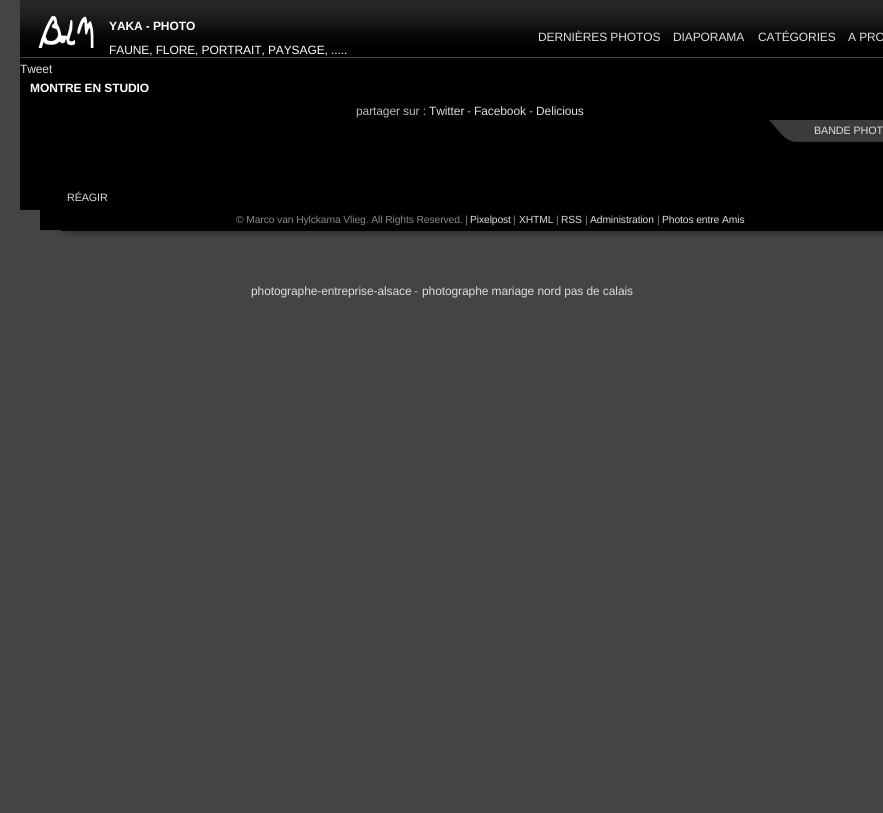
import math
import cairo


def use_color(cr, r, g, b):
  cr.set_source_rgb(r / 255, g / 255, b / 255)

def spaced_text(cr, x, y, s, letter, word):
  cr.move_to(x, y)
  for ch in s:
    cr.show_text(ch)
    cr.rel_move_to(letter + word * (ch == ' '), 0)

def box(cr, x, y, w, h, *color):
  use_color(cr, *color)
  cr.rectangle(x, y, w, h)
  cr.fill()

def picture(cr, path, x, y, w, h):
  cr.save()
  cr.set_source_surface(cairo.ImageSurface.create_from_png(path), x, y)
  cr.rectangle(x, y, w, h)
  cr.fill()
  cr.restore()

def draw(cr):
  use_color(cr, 68, 68, 68)
  cr.paint()
  box(cr, 20, 58, 863, 152, 0, 0, 0)
  picture(cr, "img_01.png", 20, 0, 863, 58)
  picture(cr, "img_02.png", 38, 16, 56, 32)
  picture(cr, "img_03.png", 769, 120, 114, 23)
  picture(cr, "img_04.png", 55, 230, 828, 7)
  box(cr, 40, 210, 843, 20, 0, 0, 0)
  cr.select_font_face("Liberation Sans", cairo.FONT_SLANT_NORMAL, cairo.FONT_WEIGHT_BOLD)
  cr.set_font_size(12)
  use_color(cr, 255, 255, 255)
  spaced_text(cr, 109, 30, "YAKA - PHOTO", -0.1, 0)
  cr.select_font_face("Liberation Sans")
  spaced_text(cr, 109, 54, "FAUNE, FLORE, PORTRAIT, PAYSAGE, .....", -0.1, 0)
  use_color(cr, 221, 221, 221)
  spaced_text(cr, 538, 41, "DERNIÈRES PHOTOS", -0.1, 0)
  spaced_text(cr, 673, 41, "DIAPORAMA", -0.1, 0)
  spaced_text(cr, 758, 41, "CATÉGORIES", -0.1, 0)
  spaced_text(cr, 848, 41, "A PRO", -0.1, 0)
  spaced_text(cr, 20, 73, "Tweet", -0.1, 0)
  cr.select_font_face("Liberation Sans", cairo.FONT_SLANT_NORMAL, cairo.FONT_WEIGHT_BOLD)
  use_color(cr, 255, 255, 255)
  spaced_text(cr, 30, 92, "MONTRE EN STUDIO", -0.1, 0)
  cr.select_font_face("Liberation Sans")
  use_color(cr, 187, 187, 187)
  spaced_text(cr, 356, 115, "partager sur :", -0.1, 0)
  use_color(cr, 221, 221, 221)
  spaced_text(cr, 429, 115, "Twitter", -0.1, 0)
  use_color(cr, 187, 187, 187)
  spaced_text(cr, 467, 115, "-", -0.1, 0)
  use_color(cr, 221, 221, 221)
  spaced_text(cr, 474, 115, "Facebook", -0.1, 0)
  use_color(cr, 187, 187, 187)
  spaced_text(cr, 529, 115, "-", -0.1, 0)
  use_color(cr, 221, 221, 221)
  spaced_text(cr, 536, 115, "Delicious", -0.1, 0)
  cr.set_font_size(10.75)
  spaced_text(cr, 814, 134, "BANDE PHOT", -0.1, 0)
  spaced_text(cr, 67, 201, "RÉAGIR", -0.1, 0)
  cr.set_font_size(10.3)
  use_color(cr, 136, 136, 136)
  spaced_text(cr, 236, 223, "© Marco van Hylckama Vlieg. All Rights Reserved. |", -0.1, 0)
  use_color(cr, 221, 221, 221)
  spaced_text(cr, 470, 223, "Pixelpost", -0.1, 0)
  use_color(cr, 136, 136, 136)
  spaced_text(cr, 513, 223, "|", -0.1, 0)
  use_color(cr, 221, 221, 221)
  spaced_text(cr, 519, 223, "XHTML", -0.1, 0)
  use_color(cr, 136, 136, 136)
  spaced_text(cr, 556, 223, "|", -0.1, 0)
  use_color(cr, 221, 221, 221)
  spaced_text(cr, 561, 223, "RSS", -0.1, 0)
  use_color(cr, 136, 136, 136)
  spaced_text(cr, 585, 223, "|", -0.1, 0)
  use_color(cr, 221, 221, 221)
  spaced_text(cr, 590, 223, "Administration", -0.1, 0)
  use_color(cr, 136, 136, 136)
  spaced_text(cr, 657, 223, "|", -0.1, 0)
  use_color(cr, 221, 221, 221)
  spaced_text(cr, 662, 223, "Photos entre Amis", -0.1, 0)
  cr.set_font_size(12)
  spaced_text(cr, 251, 295, "photographe-entreprise-alsace", -0.1, 0)
  use_color(cr, 187, 187, 187)
  spaced_text(cr, 414, 295, "-", -0.1, 0)
  use_color(cr, 221, 221, 221)
  spaced_text(cr, 422, 295, "photographe mariage nord pas de calais", -0.1, 0)


surface = cairo.ImageSurface(cairo.FORMAT_RGB24, 883, 813)
cr = cairo.Context(surface)
options = cairo.FontOptions()
options.set_hint_metrics(cairo.HINT_METRICS_OFF)
options.set_hint_style(cairo.HINT_STYLE_NONE)
cr.set_font_options(options)
cr.set_miter_limit(4)
draw(cr)
surface.write_to_png("out.png")
